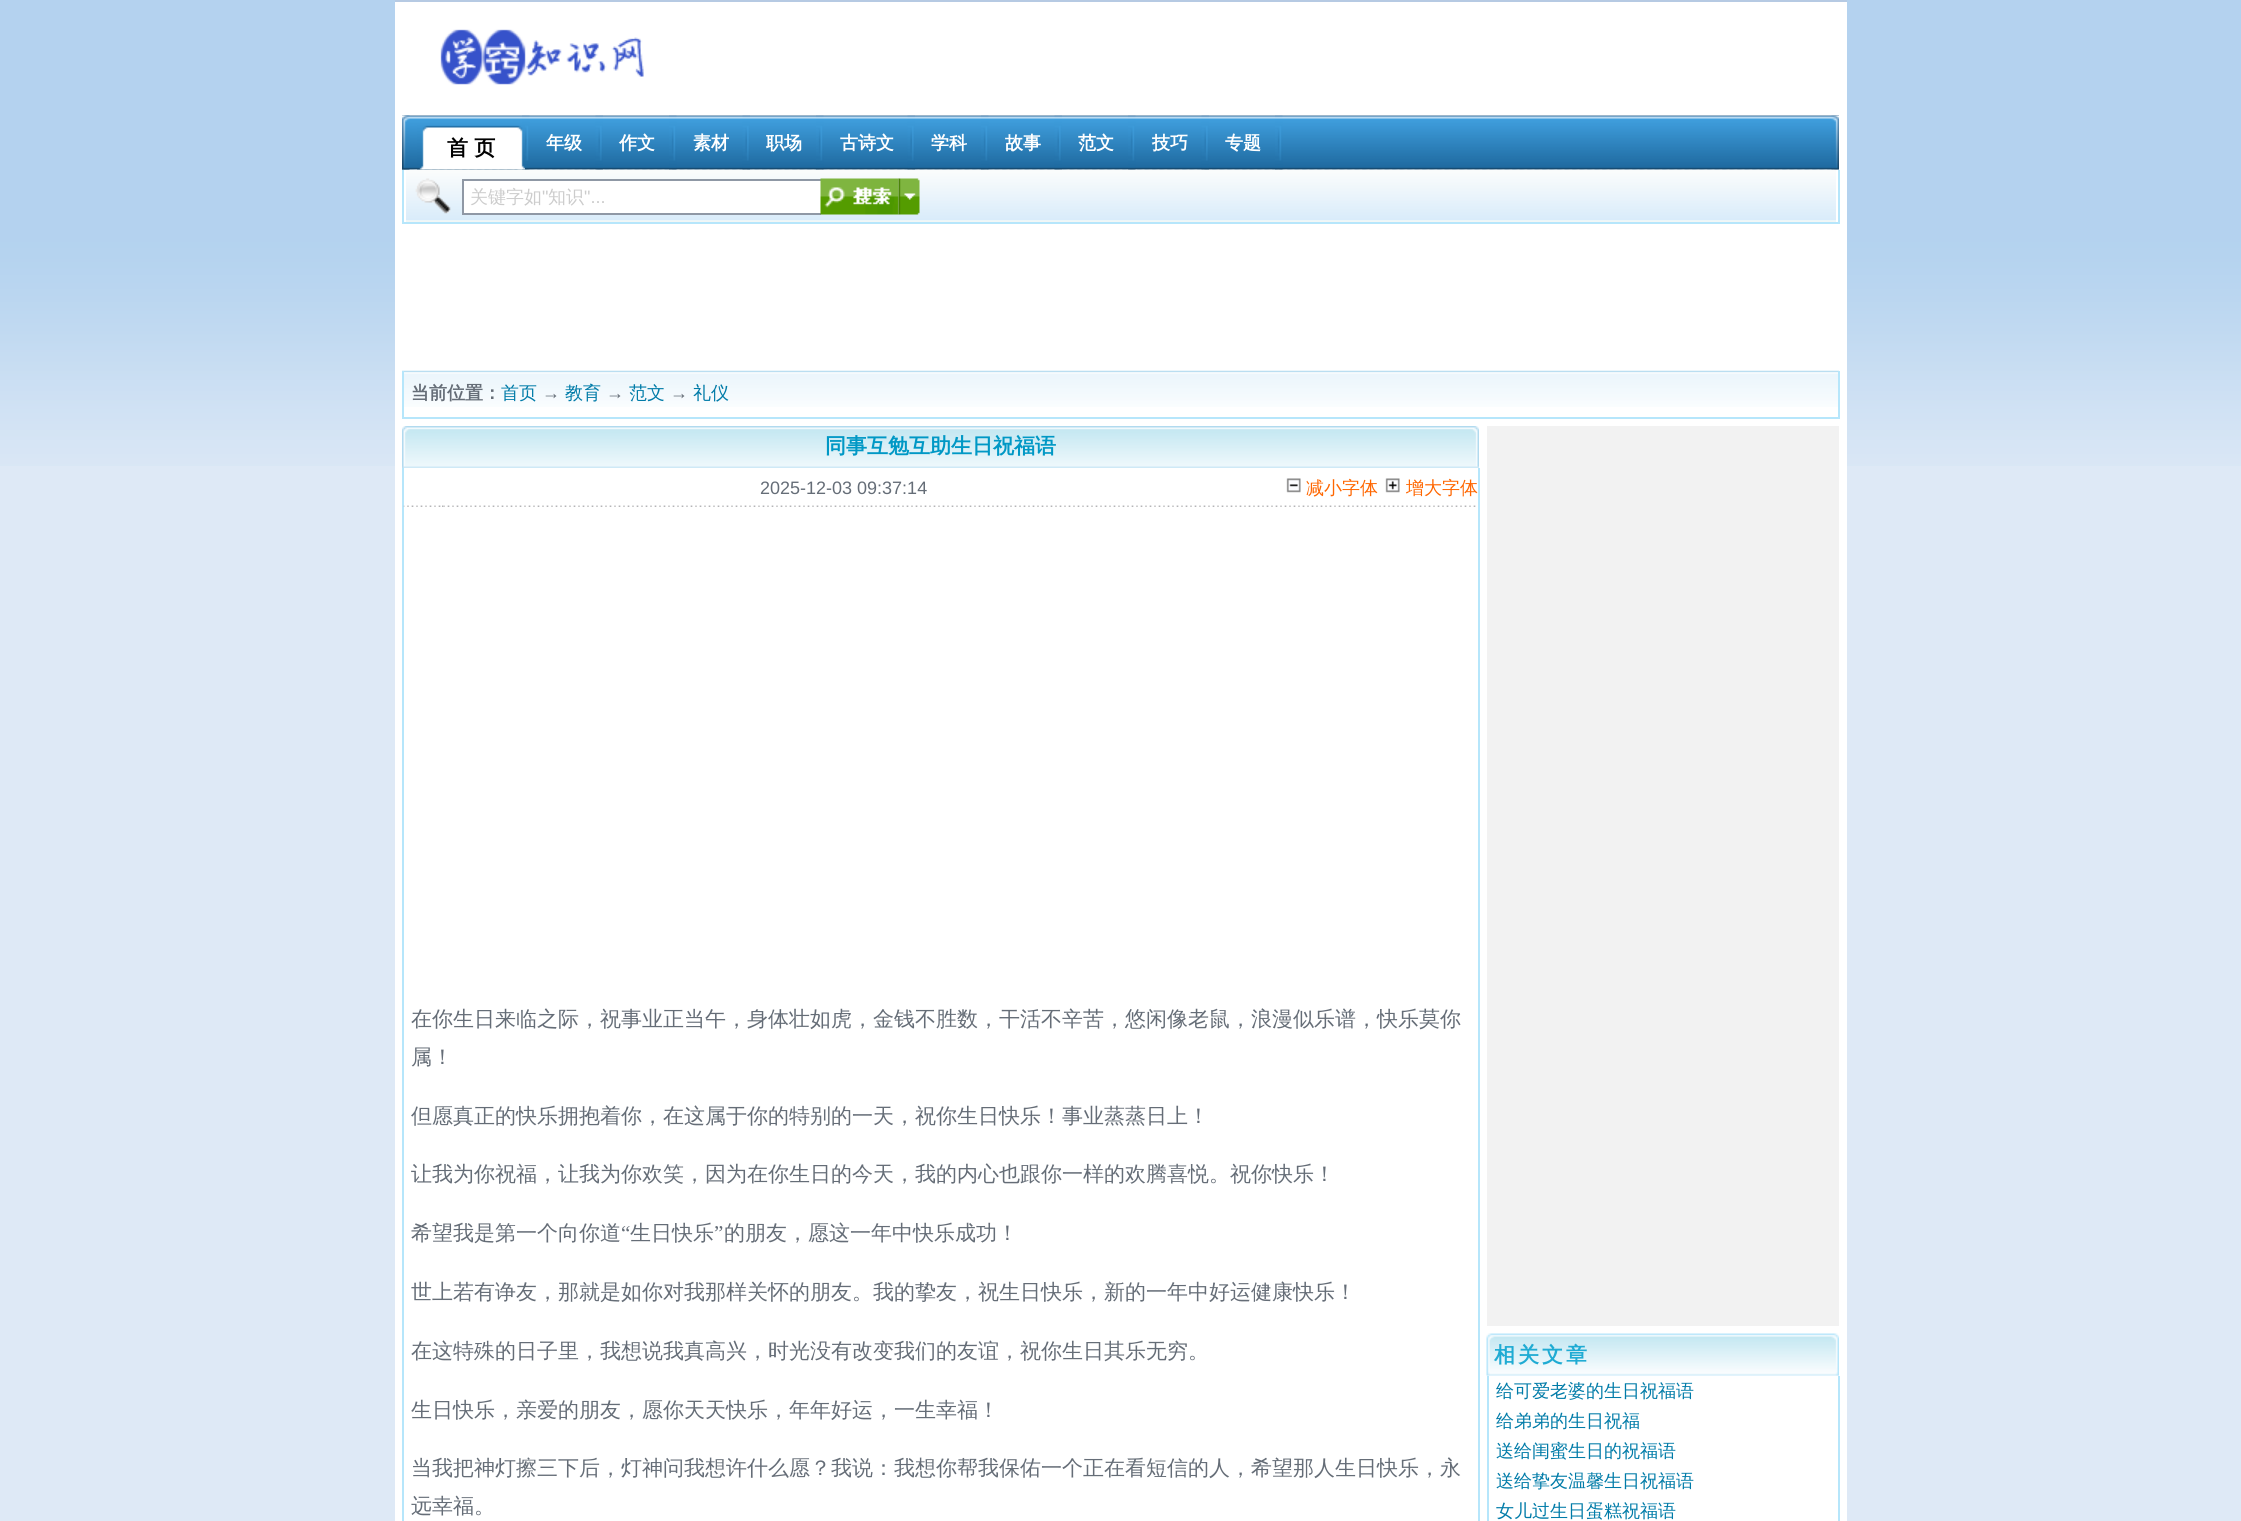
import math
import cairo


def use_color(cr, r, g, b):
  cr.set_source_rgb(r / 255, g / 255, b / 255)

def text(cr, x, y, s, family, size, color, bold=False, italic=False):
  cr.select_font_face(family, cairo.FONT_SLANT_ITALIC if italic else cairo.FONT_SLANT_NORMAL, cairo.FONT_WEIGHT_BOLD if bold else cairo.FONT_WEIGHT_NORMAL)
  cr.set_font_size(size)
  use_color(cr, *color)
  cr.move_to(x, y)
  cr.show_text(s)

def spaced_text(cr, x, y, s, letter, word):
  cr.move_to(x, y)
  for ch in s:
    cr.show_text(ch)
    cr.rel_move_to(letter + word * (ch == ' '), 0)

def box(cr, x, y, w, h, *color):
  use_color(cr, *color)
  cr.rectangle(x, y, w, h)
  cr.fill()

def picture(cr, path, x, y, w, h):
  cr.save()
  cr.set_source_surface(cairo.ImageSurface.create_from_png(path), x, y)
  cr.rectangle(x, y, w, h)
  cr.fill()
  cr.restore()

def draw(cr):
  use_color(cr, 222, 233, 246)
  cr.paint()
  picture(cr, "img_01.png", 0, 0, 2241, 466)
  box(cr, 395, 2, 1452, 1519, 255, 255, 255)
  box(cr, 395, 0, 1452, 2, 182, 202, 227)
  picture(cr, "img_02.png", 440, 29, 204, 56)
  picture(cr, "img_03.png", 402, 115, 1437, 55)
  picture(cr, "img_18.png", 402, 169, 1437, 53)
  picture(cr, "img_04.png", 402, 115, 8, 55)
  picture(cr, "img_05.png", 1831, 115, 8, 55)
  picture(cr, "img_06.png", 522, 115, 8, 55)
  picture(cr, "img_07.png", 417, 125, 108, 45)
  picture(cr, "img_08.png", 517, 125, 8, 45)
  picture(cr, "img_09.png", 595, 115, 8, 55)
  picture(cr, "img_10.png", 669, 115, 8, 55)
  picture(cr, "img_11.png", 742, 115, 8, 55)
  picture(cr, "img_12.png", 816, 115, 8, 55)
  picture(cr, "img_13.png", 907, 115, 8, 55)
  picture(cr, "img_12.png", 981, 115, 8, 55)
  picture(cr, "img_14.png", 1054, 115, 8, 55)
  picture(cr, "img_15.png", 1128, 115, 8, 55)
  picture(cr, "img_16.png", 1201, 115, 8, 55)
  picture(cr, "img_17.png", 1275, 115, 8, 55)
  box(cr, 1838, 170, 2, 54, 182, 230, 251)
  box(cr, 402, 222, 1437, 2, 182, 230, 251)
  box(cr, 402, 170, 2, 54, 182, 230, 251)
  box(cr, 1836, 170, 2, 52, 255, 255, 255)
  box(cr, 404, 170, 2, 52, 255, 255, 255)
  picture(cr, "img_19.png", 415, 178, 36, 36)
  box(cr, 464, 181, 357, 32, 255, 255, 255)
  box(cr, 462, 179, 359, 2, 143, 152, 165)
  box(cr, 462, 213, 359, 2, 143, 152, 165)
  box(cr, 462, 179, 2, 36, 143, 152, 165)
  picture(cr, "img_20.png", 820, 178, 79, 37)
  picture(cr, "img_21.png", 898, 178, 22, 37)
  picture(cr, "img_22.png", 402, 370, 1437, 37)
  box(cr, 1838, 371, 2, 48, 182, 230, 251)
  box(cr, 402, 417, 1437, 2, 182, 230, 251)
  box(cr, 402, 371, 2, 48, 182, 230, 251)
  picture(cr, "img_23.png", 402, 426, 1077, 42)
  box(cr, 1478, 468, 2, 1053, 182, 230, 251)
  box(cr, 402, 468, 2, 1053, 182, 230, 251)
  picture(cr, "img_24.png", 403, 505, 1073, 2)
  picture(cr, "img_25.png", 1286, 478, 15, 15)
  picture(cr, "img_26.png", 1385, 478, 15, 15)
  box(cr, 1487, 426, 352, 900, 242, 242, 242)
  box(cr, 1487, 1375, 352, 1, 237, 246, 255)
  picture(cr, "img_27.png", 1486, 1333, 353, 43)
  box(cr, 1838, 1376, 2, 145, 182, 230, 251)
  box(cr, 1487, 1376, 2, 145, 182, 230, 251)
  text(cr, 447, 155, "首 页", "WenQuanYi Zen Hei", 21, (0, 0, 0), bold=True)
  text(cr, 546, 149, "年级", "WenQuanYi Zen Hei", 18, (255, 255, 255), bold=True)
  text(cr, 619, 149, "作文", "WenQuanYi Zen Hei", 18, (255, 255, 255), bold=True)
  text(cr, 693, 149, "素材", "WenQuanYi Zen Hei", 18, (255, 255, 255), bold=True)
  text(cr, 766, 149, "职场", "WenQuanYi Zen Hei", 18, (255, 255, 255), bold=True)
  text(cr, 840, 149, "古诗文", "WenQuanYi Zen Hei", 18, (255, 255, 255), bold=True)
  text(cr, 931, 149, "学科", "WenQuanYi Zen Hei", 18, (255, 255, 255), bold=True)
  text(cr, 1005, 149, "故事", "WenQuanYi Zen Hei", 18, (255, 255, 255), bold=True)
  text(cr, 1078, 149, "范文", "WenQuanYi Zen Hei", 18, (255, 255, 255), bold=True)
  text(cr, 1152, 149, "技巧", "WenQuanYi Zen Hei", 18, (255, 255, 255), bold=True)
  text(cr, 1225, 149, "专题", "WenQuanYi Zen Hei", 18, (255, 255, 255), bold=True)
  text(cr, 470, 203, "关键字如", "WenQuanYi Zen Hei Medium", 18, (204, 204, 204))
  text(cr, 542, 203, "\"", "Liberation Sans", 18, (204, 204, 204))
  text(cr, 548, 203, "知识", "WenQuanYi Zen Hei Medium", 18, (204, 204, 204))
  text(cr, 584, 203, "\"...", "Liberation Sans", 18, (204, 204, 204))
  text(cr, 411, 399, "当前位置：", "WenQuanYi Zen Hei", 18, (101, 109, 119), bold=True)
  text(cr, 501, 399, "首页", "WenQuanYi Zen Hei Medium", 18, (0, 123, 168))
  text(cr, 542, 399, "→", "Liberation Sans", 18, (101, 109, 119))
  text(cr, 565, 399, "教育", "WenQuanYi Zen Hei Medium", 18, (0, 123, 168))
  text(cr, 606, 399, "→", "Liberation Sans", 18, (101, 109, 119))
  text(cr, 629, 399, "范文", "WenQuanYi Zen Hei Medium", 18, (0, 123, 168))
  text(cr, 670, 399, "→", "Liberation Sans", 18, (101, 109, 119))
  text(cr, 693, 399, "礼仪", "WenQuanYi Zen Hei Medium", 18, (0, 123, 168))
  text(cr, 825, 453, "同事互勉互助生日祝福语", "WenQuanYi Zen Hei", 21, (0, 152, 197), bold=True)
  text(cr, 760, 494, "2025-12-03 09:37:14", "Liberation Sans", 18, (101, 109, 119))
  text(cr, 1306, 494, "减小字体", "WenQuanYi Zen Hei Medium", 18, (255, 102, 0))
  text(cr, 1406, 494, "增大字体", "WenQuanYi Zen Hei Medium", 18, (255, 102, 0))
  text(cr, 411, 1026, "在你生日来临之际，祝事业正当午，身体壮如虎，金钱不胜数，干活不辛苦，悠闲像老鼠，浪漫似乐谱，快乐莫你", "WenQuanYi Zen Hei Medium", 21, (101, 109, 119))
  text(cr, 411, 1064, "属！", "WenQuanYi Zen Hei Medium", 21, (101, 109, 119))
  text(cr, 411, 1123, "但愿真正的快乐拥抱着你，在这属于你的特别的一天，祝你生日快乐！事业蒸蒸日上！", "WenQuanYi Zen Hei Medium", 21, (101, 109, 119))
  text(cr, 411, 1181, "让我为你祝福，让我为你欢笑，因为在你生日的今天，我的内心也跟你一样的欢腾喜悦。祝你快乐！", "WenQuanYi Zen Hei Medium", 21, (101, 109, 119))
  text(cr, 411, 1240, "希望我是第一个向你道", "WenQuanYi Zen Hei Medium", 21, (101, 109, 119))
  text(cr, 621, 1240, "“", "Liberation Serif", 21, (101, 109, 119))
  text(cr, 630, 1240, "生日快乐", "WenQuanYi Zen Hei Medium", 21, (101, 109, 119))
  text(cr, 714, 1240, "”", "Liberation Serif", 21, (101, 109, 119))
  text(cr, 724, 1240, "的朋友，愿这一年中快乐成功！", "WenQuanYi Zen Hei Medium", 21, (101, 109, 119))
  text(cr, 411, 1299, "世上若有诤友，那就是如你对我那样关怀的朋友。我的挚友，祝生日快乐，新的一年中好运健康快乐！", "WenQuanYi Zen Hei Medium", 21, (101, 109, 119))
  text(cr, 411, 1358, "在这特殊的日子里，我想说我真高兴，时光没有改变我们的友谊，祝你生日其乐无穷。", "WenQuanYi Zen Hei Medium", 21, (101, 109, 119))
  text(cr, 411, 1417, "生日快乐，亲爱的朋友，愿你天天快乐，年年好运，一生幸福！", "WenQuanYi Zen Hei Medium", 21, (101, 109, 119))
  text(cr, 411, 1475, "当我把神灯擦三下后，灯神问我想许什么愿？我说：我想你帮我保佑一个正在看短信的人，希望那人生日快乐，永", "WenQuanYi Zen Hei Medium", 21, (101, 109, 119))
  text(cr, 411, 1513, "远幸福。", "WenQuanYi Zen Hei Medium", 21, (101, 109, 119))
  cr.select_font_face("WenQuanYi Zen Hei", cairo.FONT_SLANT_NORMAL, cairo.FONT_WEIGHT_BOLD)
  use_color(cr, 31, 171, 211)
  spaced_text(cr, 1494, 1362, "相关文章", 3, 0)
  text(cr, 1496, 1397, "给可爱老婆的生日祝福语", "WenQuanYi Zen Hei Medium", 18, (0, 123, 168))
  text(cr, 1496, 1427, "给弟弟的生日祝福", "WenQuanYi Zen Hei Medium", 18, (0, 123, 168))
  text(cr, 1496, 1457, "送给闺蜜生日的祝福语", "WenQuanYi Zen Hei Medium", 18, (0, 123, 168))
  text(cr, 1496, 1487, "送给挚友温馨生日祝福语", "WenQuanYi Zen Hei Medium", 18, (0, 123, 168))
  text(cr, 1496, 1517, "女儿过生日蛋糕祝福语", "WenQuanYi Zen Hei Medium", 18, (0, 123, 168))


surface = cairo.ImageSurface(cairo.FORMAT_RGB24, 2241, 1521)
cr = cairo.Context(surface)
options = cairo.FontOptions()
options.set_hint_metrics(cairo.HINT_METRICS_OFF)
options.set_hint_style(cairo.HINT_STYLE_NONE)
cr.set_font_options(options)
cr.set_miter_limit(4)
draw(cr)
surface.write_to_png("out.png")
